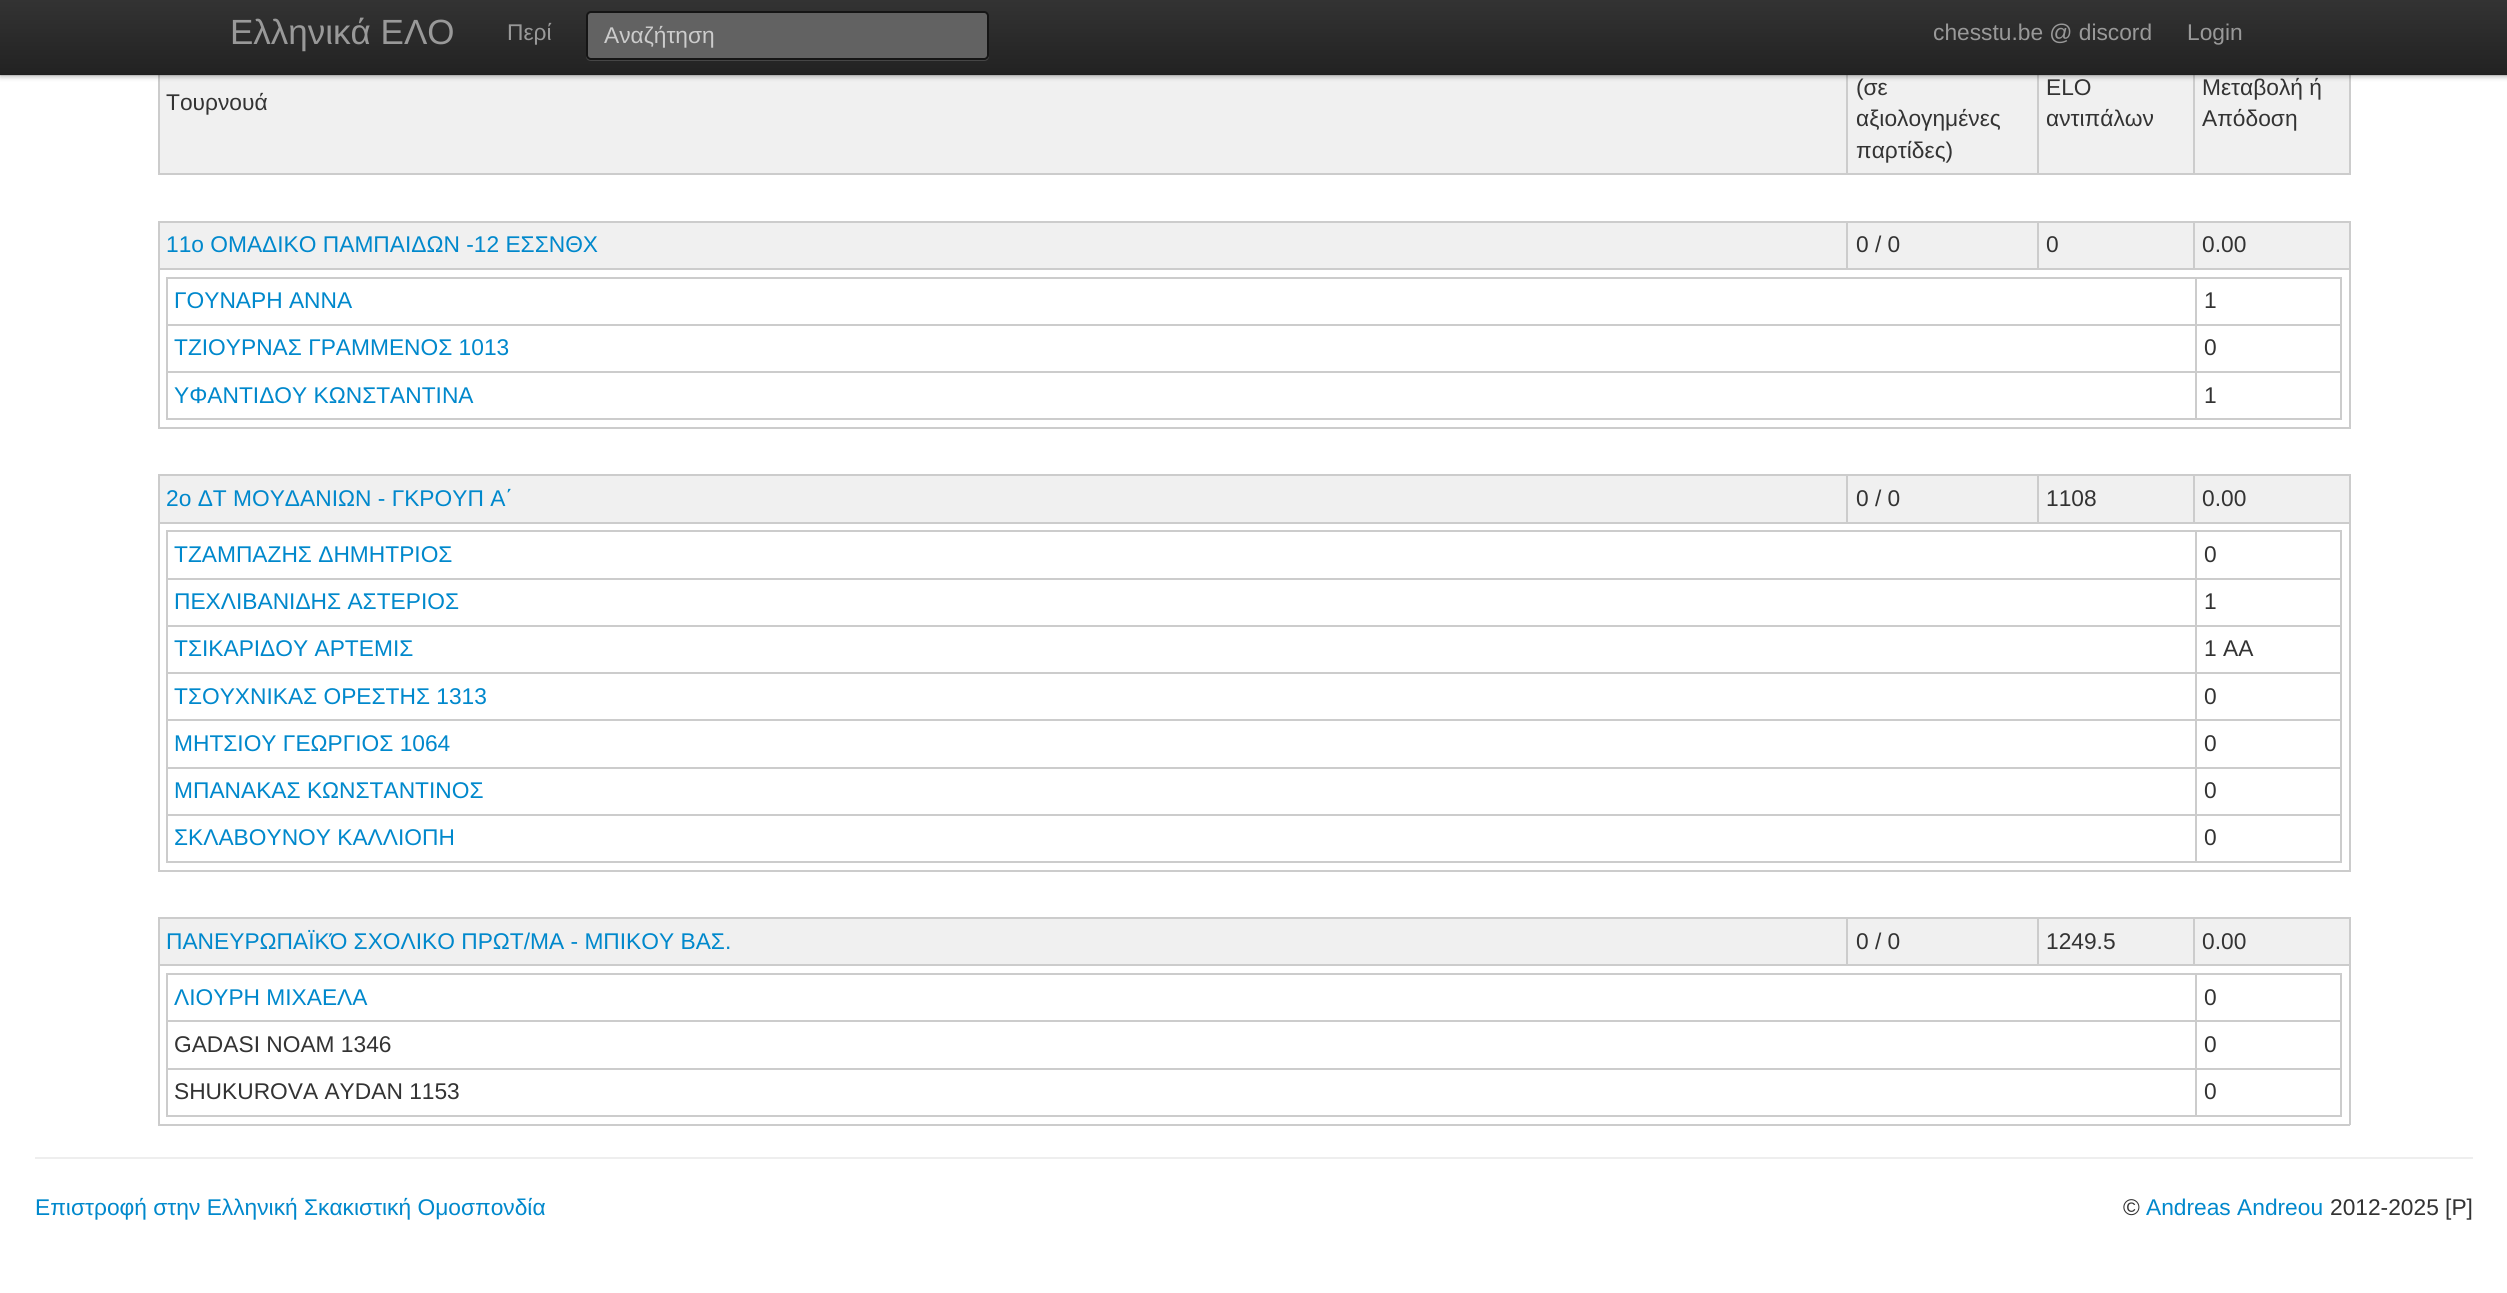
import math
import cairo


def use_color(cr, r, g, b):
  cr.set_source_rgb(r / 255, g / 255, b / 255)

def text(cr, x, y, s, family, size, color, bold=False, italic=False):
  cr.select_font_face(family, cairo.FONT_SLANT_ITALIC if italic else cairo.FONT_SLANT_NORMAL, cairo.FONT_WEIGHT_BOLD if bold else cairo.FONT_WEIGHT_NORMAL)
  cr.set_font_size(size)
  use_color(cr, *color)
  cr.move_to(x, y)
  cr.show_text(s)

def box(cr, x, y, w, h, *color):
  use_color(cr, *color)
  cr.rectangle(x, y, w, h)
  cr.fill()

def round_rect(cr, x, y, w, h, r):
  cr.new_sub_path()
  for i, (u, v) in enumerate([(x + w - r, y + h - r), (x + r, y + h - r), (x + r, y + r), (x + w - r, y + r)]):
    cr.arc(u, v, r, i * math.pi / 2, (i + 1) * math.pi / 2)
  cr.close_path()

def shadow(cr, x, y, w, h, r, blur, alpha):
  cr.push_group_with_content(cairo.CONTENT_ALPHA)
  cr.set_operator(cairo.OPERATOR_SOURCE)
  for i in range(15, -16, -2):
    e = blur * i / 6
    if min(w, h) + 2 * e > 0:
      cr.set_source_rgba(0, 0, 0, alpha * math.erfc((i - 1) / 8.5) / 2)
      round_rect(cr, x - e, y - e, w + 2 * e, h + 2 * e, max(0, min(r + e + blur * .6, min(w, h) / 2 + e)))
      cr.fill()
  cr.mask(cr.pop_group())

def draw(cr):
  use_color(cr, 255, 255, 255)
  cr.paint()
  box(cr, 160, 75, 2189, 98, 240, 240, 240)
  box(cr, 2349, 75, 2, 100, 204, 204, 204)
  box(cr, 2193, 173, 157, 2, 204, 204, 204)
  box(cr, 2193, 75, 2, 100, 204, 204, 204)
  box(cr, 2037, 173, 158, 2, 204, 204, 204)
  box(cr, 2037, 75, 2, 100, 204, 204, 204)
  box(cr, 1846, 173, 193, 2, 204, 204, 204)
  box(cr, 1846, 75, 2, 100, 204, 204, 204)
  box(cr, 158, 173, 1690, 2, 204, 204, 204)
  box(cr, 158, 75, 2, 100, 204, 204, 204)
  use_color(cr, 0, 0, 0)
  shadow(cr, 0, 2, 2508, 75, 0, 2.5, 0.25)
  gradient = cairo.LinearGradient(1254, 0, 1254, 75)
  gradient.add_color_stop_rgba(0, 0.2, 0.2, 0.2, 1)
  gradient.add_color_stop_rgba(1, 0.133, 0.133, 0.133, 1)
  cr.set_source(gradient)
  cr.rectangle(0, 0, 2507, 75)
  cr.fill()
  cr.set_source_rgba(0, 0, 0, 0.1)
  cr.rectangle(0, 74, 2507, 2)
  cr.fill()
  use_color(cr, 70, 70, 70)
  cr.new_path()
  cr.move_to(586, 15)
  cr.line_to(586, 56)
  cr.curve_to(586, 59, 588, 61, 591, 61)
  cr.line_to(984, 61)
  cr.curve_to(987, 61, 989, 59, 989, 56)
  cr.line_to(989, 15)
  cr.line_to(989, 54)
  cr.curve_to(989, 57, 986, 60, 984, 60)
  cr.line_to(592, 60)
  cr.curve_to(589, 60, 586, 57, 586, 54)
  cr.close_path()
  cr.fill()
  use_color(cr, 98, 98, 98)
  round_rect(cr, 587, 12, 401, 47, 4)
  cr.fill_preserve()
  use_color(cr, 21, 21, 21)
  cr.stroke()
  box(cr, 160, 223, 2189, 45, 240, 240, 240)
  box(cr, 2193, 221, 157, 2, 204, 204, 204)
  box(cr, 158, 268, 2192, 2, 204, 204, 204)
  box(cr, 2193, 221, 2, 49, 204, 204, 204)
  box(cr, 2037, 221, 158, 2, 204, 204, 204)
  box(cr, 2037, 221, 2, 49, 204, 204, 204)
  box(cr, 1846, 221, 193, 2, 204, 204, 204)
  box(cr, 1846, 221, 2, 49, 204, 204, 204)
  box(cr, 158, 221, 1690, 2, 204, 204, 204)
  box(cr, 2349, 268, 2, 161, 204, 204, 204)
  box(cr, 158, 427, 2192, 2, 204, 204, 204)
  box(cr, 158, 268, 2, 161, 204, 204, 204)
  box(cr, 158, 221, 2, 49, 204, 204, 204)
  box(cr, 2349, 221, 2, 49, 204, 204, 204)
  box(cr, 2195, 277, 147, 2, 204, 204, 204)
  box(cr, 2195, 324, 147, 2, 204, 204, 204)
  box(cr, 2195, 371, 147, 2, 204, 204, 204)
  box(cr, 2340, 371, 2, 49, 204, 204, 204)
  box(cr, 2195, 418, 147, 2, 204, 204, 204)
  box(cr, 2195, 371, 2, 49, 204, 204, 204)
  box(cr, 166, 371, 2030, 2, 204, 204, 204)
  box(cr, 2195, 324, 2, 49, 204, 204, 204)
  box(cr, 166, 324, 2030, 2, 204, 204, 204)
  box(cr, 2195, 277, 2, 49, 204, 204, 204)
  box(cr, 166, 277, 2030, 2, 204, 204, 204)
  box(cr, 166, 418, 2030, 2, 204, 204, 204)
  box(cr, 166, 371, 2, 49, 204, 204, 204)
  box(cr, 166, 324, 2, 49, 204, 204, 204)
  box(cr, 166, 277, 2, 49, 204, 204, 204)
  box(cr, 2340, 324, 2, 49, 204, 204, 204)
  box(cr, 2340, 277, 2, 49, 204, 204, 204)
  box(cr, 160, 476, 2189, 46, 240, 240, 240)
  box(cr, 2193, 474, 157, 2, 204, 204, 204)
  box(cr, 158, 522, 2192, 2, 204, 204, 204)
  box(cr, 2193, 474, 2, 49, 204, 204, 204)
  box(cr, 2037, 474, 158, 2, 204, 204, 204)
  box(cr, 2037, 474, 2, 49, 204, 204, 204)
  box(cr, 1846, 474, 193, 2, 204, 204, 204)
  box(cr, 1846, 474, 2, 49, 204, 204, 204)
  box(cr, 158, 474, 1690, 2, 204, 204, 204)
  box(cr, 2349, 522, 2, 350, 204, 204, 204)
  box(cr, 158, 870, 2192, 2, 204, 204, 204)
  box(cr, 158, 522, 2, 350, 204, 204, 204)
  box(cr, 158, 474, 2, 49, 204, 204, 204)
  box(cr, 2349, 474, 2, 49, 204, 204, 204)
  box(cr, 2195, 530, 147, 2, 204, 204, 204)
  box(cr, 2195, 578, 147, 2, 204, 204, 204)
  box(cr, 2195, 625, 147, 2, 204, 204, 204)
  box(cr, 2195, 672, 147, 2, 204, 204, 204)
  box(cr, 2195, 719, 147, 2, 204, 204, 204)
  box(cr, 2195, 767, 147, 2, 204, 204, 204)
  box(cr, 2195, 814, 147, 2, 204, 204, 204)
  box(cr, 2340, 814, 2, 49, 204, 204, 204)
  box(cr, 2195, 861, 147, 2, 204, 204, 204)
  box(cr, 2195, 814, 2, 49, 204, 204, 204)
  box(cr, 166, 814, 2030, 2, 204, 204, 204)
  box(cr, 2195, 767, 2, 49, 204, 204, 204)
  box(cr, 166, 767, 2030, 2, 204, 204, 204)
  box(cr, 2195, 719, 2, 49, 204, 204, 204)
  box(cr, 166, 719, 2030, 2, 204, 204, 204)
  box(cr, 2195, 672, 2, 49, 204, 204, 204)
  box(cr, 166, 672, 2030, 2, 204, 204, 204)
  box(cr, 2195, 625, 2, 49, 204, 204, 204)
  box(cr, 166, 625, 2030, 2, 204, 204, 204)
  box(cr, 2195, 578, 2, 49, 204, 204, 204)
  box(cr, 166, 578, 2030, 2, 204, 204, 204)
  box(cr, 2195, 530, 2, 49, 204, 204, 204)
  box(cr, 166, 530, 2030, 2, 204, 204, 204)
  box(cr, 166, 861, 2030, 2, 204, 204, 204)
  box(cr, 166, 814, 2, 49, 204, 204, 204)
  box(cr, 166, 767, 2, 49, 204, 204, 204)
  box(cr, 166, 719, 2, 49, 204, 204, 204)
  box(cr, 166, 672, 2, 49, 204, 204, 204)
  box(cr, 166, 625, 2, 49, 204, 204, 204)
  box(cr, 166, 578, 2, 49, 204, 204, 204)
  box(cr, 166, 530, 2, 49, 204, 204, 204)
  box(cr, 2340, 767, 2, 49, 204, 204, 204)
  box(cr, 2340, 719, 2, 49, 204, 204, 204)
  box(cr, 2340, 672, 2, 49, 204, 204, 204)
  box(cr, 2340, 625, 2, 49, 204, 204, 204)
  box(cr, 2340, 578, 2, 49, 204, 204, 204)
  box(cr, 2340, 530, 2, 49, 204, 204, 204)
  box(cr, 160, 919, 2189, 45, 240, 240, 240)
  box(cr, 2193, 917, 157, 2, 204, 204, 204)
  box(cr, 158, 964, 2192, 2, 204, 204, 204)
  box(cr, 2193, 917, 2, 49, 204, 204, 204)
  box(cr, 2037, 917, 158, 2, 204, 204, 204)
  box(cr, 2037, 917, 2, 49, 204, 204, 204)
  box(cr, 1846, 917, 193, 2, 204, 204, 204)
  box(cr, 1846, 917, 2, 49, 204, 204, 204)
  box(cr, 158, 917, 1690, 2, 204, 204, 204)
  box(cr, 2349, 964, 2, 161, 204, 204, 204)
  box(cr, 158, 1124, 2192, 2, 204, 204, 204)
  box(cr, 158, 964, 2, 161, 204, 204, 204)
  box(cr, 158, 917, 2, 49, 204, 204, 204)
  box(cr, 2349, 917, 2, 49, 204, 204, 204)
  box(cr, 2195, 973, 147, 2, 204, 204, 204)
  box(cr, 2195, 1020, 147, 2, 204, 204, 204)
  box(cr, 2195, 1068, 147, 2, 204, 204, 204)
  box(cr, 2340, 1068, 2, 49, 204, 204, 204)
  box(cr, 2195, 1115, 147, 2, 204, 204, 204)
  box(cr, 2195, 1068, 2, 49, 204, 204, 204)
  box(cr, 166, 1068, 2030, 2, 204, 204, 204)
  box(cr, 2195, 1020, 2, 49, 204, 204, 204)
  box(cr, 166, 1020, 2030, 2, 204, 204, 204)
  box(cr, 2195, 973, 2, 49, 204, 204, 204)
  box(cr, 166, 973, 2030, 2, 204, 204, 204)
  box(cr, 166, 1115, 2030, 2, 204, 204, 204)
  box(cr, 166, 1068, 2, 49, 204, 204, 204)
  box(cr, 166, 1020, 2, 49, 204, 204, 204)
  box(cr, 166, 973, 2, 49, 204, 204, 204)
  box(cr, 2340, 1020, 2, 49, 204, 204, 204)
  box(cr, 2340, 973, 2, 49, 204, 204, 204)
  box(cr, 35, 1157, 2438, 2, 238, 238, 238)
  text(cr, 230, 44, "Ελληνικά ΕΛΟ", "Liberation Sans", 35, (153, 153, 153))
  text(cr, 507, 40, "Περί", "Liberation Sans", 22.75, (153, 153, 153))
  text(cr, 604, 43, "Αναζήτηση", "Liberation Sans", 22.75, (204, 204, 204))
  text(cr, 1933, 40, "chesstu.be @ discord", "Liberation Sans", 22.75, (153, 153, 153))
  text(cr, 2187, 40, "Login", "Liberation Sans", 22.75, (153, 153, 153))
  text(cr, 166, 110, "Τουρνουά", "Liberation Sans", 22.75, (51, 51, 51))
  text(cr, 1856, 95, "(σε", "Liberation Sans", 22.75, (51, 51, 51))
  text(cr, 1856, 126, "αξιολογημένες", "Liberation Sans", 22.75, (51, 51, 51))
  text(cr, 1856, 158, "παρτίδες)", "Liberation Sans", 22.75, (51, 51, 51))
  text(cr, 2046, 95, "ELO", "Liberation Sans", 22.75, (51, 51, 51))
  text(cr, 2046, 126, "αντιπάλων", "Liberation Sans", 22.75, (51, 51, 51))
  text(cr, 2202, 95, "Μεταβολή ή", "Liberation Sans", 22.75, (51, 51, 51))
  text(cr, 2202, 126, "Απόδοση", "Liberation Sans", 22.75, (51, 51, 51))
  text(cr, 166, 252, "11ο ΟΜΑΔΙΚΟ ΠΑΜΠΑΙΔΩΝ -12 ΕΣΣΝΘΧ", "Liberation Sans", 22.75, (0, 136, 204))
  text(cr, 1856, 252, "0 / 0", "Liberation Sans", 22.75, (51, 51, 51))
  text(cr, 2046, 252, "0", "Liberation Sans", 22.75, (51, 51, 51))
  text(cr, 2202, 252, "0.00", "Liberation Sans", 22.75, (51, 51, 51))
  text(cr, 174, 308, "ΓΟΥΝΑΡΗ ΑΝΝΑ", "Liberation Sans", 22.75, (0, 136, 204))
  text(cr, 2204, 308, "1", "Liberation Sans", 22.75, (51, 51, 51))
  text(cr, 174, 355, "ΤΖΙΟΥΡΝΑΣ ΓΡΑΜΜΕΝΟΣ 1013", "Liberation Sans", 22.75, (0, 136, 204))
  text(cr, 2204, 355, "0", "Liberation Sans", 22.75, (51, 51, 51))
  text(cr, 174, 403, "ΥΦΑΝΤΙΔΟΥ ΚΩΝΣΤΑΝΤΙΝΑ", "Liberation Sans", 22.75, (0, 136, 204))
  text(cr, 2204, 403, "1", "Liberation Sans", 22.75, (51, 51, 51))
  text(cr, 166, 506, "2ο ΔΤ ΜΟΥΔΑΝΙΩΝ - ΓΚΡΟΥΠ Α΄", "Liberation Sans", 22.75, (0, 136, 204))
  text(cr, 1856, 506, "0 / 0", "Liberation Sans", 22.75, (51, 51, 51))
  text(cr, 2046, 506, "1108", "Liberation Sans", 22.75, (51, 51, 51))
  text(cr, 2202, 506, "0.00", "Liberation Sans", 22.75, (51, 51, 51))
  text(cr, 174, 562, "ΤΖΑΜΠΑΖΗΣ ΔΗΜΗΤΡΙΟΣ", "Liberation Sans", 22.75, (0, 136, 204))
  text(cr, 2204, 562, "0", "Liberation Sans", 22.75, (51, 51, 51))
  text(cr, 174, 609, "ΠΕΧΛΙΒΑΝΙΔΗΣ ΑΣΤΕΡΙΟΣ", "Liberation Sans", 22.75, (0, 136, 204))
  text(cr, 2204, 609, "1", "Liberation Sans", 22.75, (51, 51, 51))
  text(cr, 174, 656, "ΤΣΙΚΑΡΙΔΟΥ ΑΡΤΕΜΙΣ", "Liberation Sans", 22.75, (0, 136, 204))
  text(cr, 2204, 656, "1 ΑΑ", "Liberation Sans", 22.75, (51, 51, 51))
  text(cr, 174, 704, "ΤΣΟΥΧΝΙΚΑΣ ΟΡΕΣΤΗΣ 1313", "Liberation Sans", 22.75, (0, 136, 204))
  text(cr, 2204, 704, "0", "Liberation Sans", 22.75, (51, 51, 51))
  text(cr, 174, 751, "ΜΗΤΣΙΟΥ ΓΕΩΡΓΙΟΣ 1064", "Liberation Sans", 22.75, (0, 136, 204))
  text(cr, 2204, 751, "0", "Liberation Sans", 22.75, (51, 51, 51))
  text(cr, 174, 798, "ΜΠΑΝΑΚΑΣ ΚΩΝΣΤΑΝΤΙΝΟΣ", "Liberation Sans", 22.75, (0, 136, 204))
  text(cr, 2204, 798, "0", "Liberation Sans", 22.75, (51, 51, 51))
  text(cr, 174, 845, "ΣΚΛΑΒΟΥΝΟΥ ΚΑΛΛΙΟΠΗ", "Liberation Sans", 22.75, (0, 136, 204))
  text(cr, 2204, 845, "0", "Liberation Sans", 22.75, (51, 51, 51))
  text(cr, 166, 949, "ΠΑΝΕΥΡΩΠΑΪΚΌ ΣΧΟΛΙΚΟ ΠΡΩΤ/ΜΑ - ΜΠΙΚΟΥ ΒΑΣ.", "Liberation Sans", 22.75, (0, 136, 204))
  text(cr, 1856, 949, "0 / 0", "Liberation Sans", 22.75, (51, 51, 51))
  text(cr, 2046, 949, "1249.5", "Liberation Sans", 22.75, (51, 51, 51))
  text(cr, 2202, 949, "0.00", "Liberation Sans", 22.75, (51, 51, 51))
  text(cr, 174, 1005, "ΛΙΟΥΡΗ ΜΙΧΑΕΛΑ", "Liberation Sans", 22.75, (0, 136, 204))
  text(cr, 2204, 1005, "0", "Liberation Sans", 22.75, (51, 51, 51))
  text(cr, 174, 1052, "GADASI NOAM 1346", "Liberation Sans", 22.75, (51, 51, 51))
  text(cr, 2204, 1052, "0", "Liberation Sans", 22.75, (51, 51, 51))
  text(cr, 174, 1099, "SHUKUROVA AYDAN 1153", "Liberation Sans", 22.75, (51, 51, 51))
  text(cr, 2204, 1099, "0", "Liberation Sans", 22.75, (51, 51, 51))
  text(cr, 35, 1215, "Επιστροφή στην Ελληνική Σκακιστική Ομοσπονδία", "Liberation Sans", 22.75, (0, 136, 204))
  text(cr, 2123, 1215, "©", "Liberation Sans", 22.75, (51, 51, 51))
  text(cr, 2146, 1215, "Andreas Andreou", "Liberation Sans", 22.75, (0, 136, 204))
  text(cr, 2330, 1215, "2012-2025 [P]", "Liberation Sans", 22.75, (51, 51, 51))


surface = cairo.ImageSurface(cairo.FORMAT_RGB24, 2507, 1293)
cr = cairo.Context(surface)
options = cairo.FontOptions()
options.set_hint_metrics(cairo.HINT_METRICS_OFF)
options.set_hint_style(cairo.HINT_STYLE_NONE)
cr.set_font_options(options)
cr.set_miter_limit(4)
draw(cr)
surface.write_to_png("out.png")
